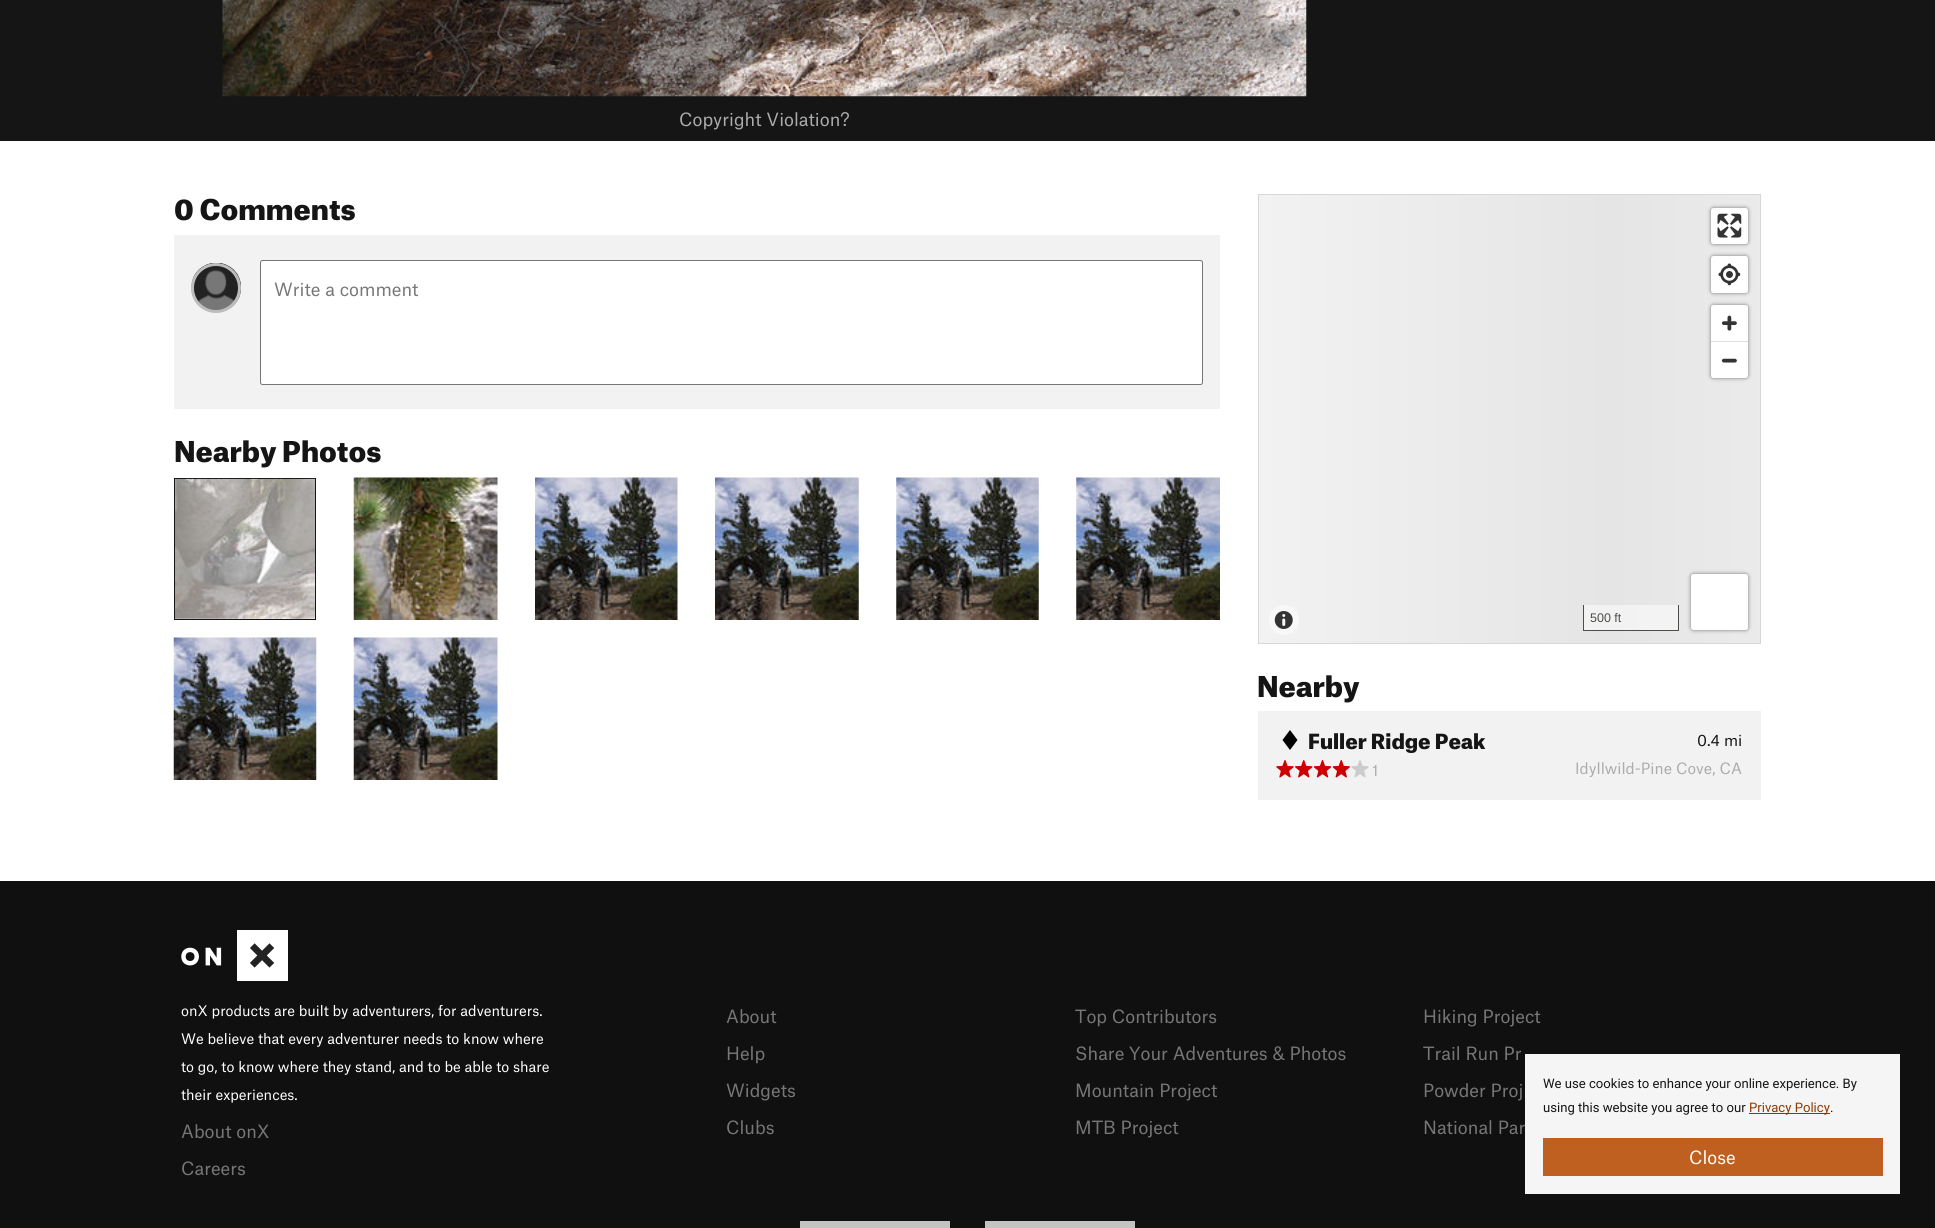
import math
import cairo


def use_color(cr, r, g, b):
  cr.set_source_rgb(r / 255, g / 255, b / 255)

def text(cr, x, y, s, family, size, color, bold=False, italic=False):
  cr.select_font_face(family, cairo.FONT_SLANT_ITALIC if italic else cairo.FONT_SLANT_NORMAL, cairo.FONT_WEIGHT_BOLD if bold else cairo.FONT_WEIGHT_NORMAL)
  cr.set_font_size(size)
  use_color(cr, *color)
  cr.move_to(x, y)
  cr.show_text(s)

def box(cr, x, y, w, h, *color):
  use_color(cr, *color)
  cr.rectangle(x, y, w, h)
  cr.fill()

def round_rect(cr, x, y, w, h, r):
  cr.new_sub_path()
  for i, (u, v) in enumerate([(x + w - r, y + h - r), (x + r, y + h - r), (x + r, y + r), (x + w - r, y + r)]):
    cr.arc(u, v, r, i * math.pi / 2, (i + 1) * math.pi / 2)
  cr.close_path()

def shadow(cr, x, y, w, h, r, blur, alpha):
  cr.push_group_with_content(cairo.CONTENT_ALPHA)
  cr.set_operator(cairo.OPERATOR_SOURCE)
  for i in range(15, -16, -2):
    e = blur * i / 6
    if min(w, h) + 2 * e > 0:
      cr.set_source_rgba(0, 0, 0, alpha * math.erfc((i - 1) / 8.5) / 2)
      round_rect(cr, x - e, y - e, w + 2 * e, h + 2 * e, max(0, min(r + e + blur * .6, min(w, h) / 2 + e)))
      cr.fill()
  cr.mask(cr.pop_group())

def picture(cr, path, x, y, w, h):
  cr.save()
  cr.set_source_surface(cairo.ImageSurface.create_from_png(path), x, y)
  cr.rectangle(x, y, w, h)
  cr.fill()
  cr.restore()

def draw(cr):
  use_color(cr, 255, 255, 255)
  cr.paint()
  box(cr, 0, 0, 1935, 141, 21, 21, 21)
  picture(cr, "img_01.png", 222, 0, 1085, 97)
  box(cr, 174, 235, 1046, 174, 242, 242, 242)
  picture(cr, "img_02.png", 191, 263, 50, 50)
  cr.arc(216, 288, 23.5, 0, 2 * math.pi)
  use_color(cr, 189, 189, 189)
  cr.set_line_width(3)
  cr.stroke()
  use_color(cr, 255, 255, 255)
  round_rect(cr, 260.5, 260.5, 942, 124, 2)
  cr.fill_preserve()
  use_color(cr, 118, 118, 118)
  cr.set_line_width(1)
  cr.stroke()
  cr.rectangle(174.5, 478.5, 141, 141)
  use_color(cr, 21, 21, 21)
  cr.stroke()
  picture(cr, "img_03.png", 175, 478, 140, 141)
  picture(cr, "img_04.png", 353, 477, 145, 143)
  picture(cr, "img_05.png", 535, 477, 143, 143)
  picture(cr, "img_06.png", 715, 477, 144, 143)
  picture(cr, "img_07.png", 896, 477, 143, 143)
  picture(cr, "img_08.png", 1076, 477, 144, 143)
  picture(cr, "img_09.png", 173, 637, 144, 143)
  picture(cr, "img_10.png", 353, 637, 145, 143)
  gradient = cairo.LinearGradient(1259, 419, 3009, 419)
  gradient.add_color_stop_rgba(0, 0.949, 0.949, 0.949, 1)
  gradient.add_color_stop_rgba(0.2, 0.898, 0.898, 0.898, 1)
  gradient.add_color_stop_rgba(0.4, 0.949, 0.949, 0.949, 1)
  gradient.add_color_stop_rgba(1, 0.949, 0.949, 0.949, 1)
  cr.set_source(gradient)
  cr.rectangle(1259, 195, 501, 448)
  cr.fill()
  gradient = cairo.LinearGradient(1259, 419, 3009, 419)
  gradient.add_color_stop_rgba(0, 0.976, 0.976, 0.976, 1)
  gradient.add_color_stop_rgba(0.2, 0.949, 0.949, 0.949, 1)
  gradient.add_color_stop_rgba(0.4, 0.976, 0.976, 0.976, 1)
  gradient.add_color_stop_rgba(1, 0.976, 0.976, 0.976, 1)
  cr.set_source(gradient)
  cr.rectangle(1584, 605, 94, 25)
  cr.fill()
  cr.rectangle(1258.5, 194.5, 502, 449)
  use_color(cr, 215, 215, 215)
  cr.stroke()
  use_color(cr, 248, 248, 248)
  cr.arc(1284, 620, 15, 0, 2 * math.pi)
  cr.fill()
  picture(cr, "img_11.png", 1274, 611, 19, 18)
  use_color(cr, 0, 0, 0)
  shadow(cr, 1711, 208, 37, 36, 2.5, 2, 0.5)
  use_color(cr, 255, 255, 255)
  round_rect(cr, 1711, 208, 37, 36, 2.5)
  cr.fill()
  picture(cr, "img_12.png", 1717, 213, 25, 25)
  use_color(cr, 0, 0, 0)
  shadow(cr, 1711, 256, 37, 37, 2.5, 2, 0.5)
  use_color(cr, 255, 255, 255)
  round_rect(cr, 1711, 256, 37, 37, 2.5)
  cr.fill()
  picture(cr, "img_13.png", 1718, 263, 23, 23)
  use_color(cr, 0, 0, 0)
  shadow(cr, 1711, 305, 37, 73, 2.5, 2, 0.5)
  use_color(cr, 255, 255, 255)
  round_rect(cr, 1711, 305, 37, 73, 2.5)
  cr.fill()
  picture(cr, "img_14.png", 1721, 315, 16, 16)
  box(cr, 1711, 341, 37, 1, 221, 221, 221)
  picture(cr, "img_15.png", 1721, 358, 16, 5)
  box(cr, 1678, 605, 1, 26, 78, 77, 73)
  box(cr, 1583, 630, 96, 1, 78, 77, 73)
  box(cr, 1583, 605, 1, 26, 78, 77, 73)
  use_color(cr, 0, 0, 0)
  shadow(cr, 1691, 574, 57, 56, 2.5, 2, 0.5)
  use_color(cr, 255, 255, 255)
  round_rect(cr, 1691, 574, 57, 56, 2.5)
  cr.fill()
  box(cr, 1258, 711, 503, 89, 242, 242, 242)
  use_color(cr, 1, 2, 1)
  cr.set_fill_rule(cairo.FILL_RULE_EVEN_ODD)
  cr.new_path()
  cr.move_to(1290, 730)
  cr.line_to(1282.5, 740)
  cr.line_to(1290, 750)
  cr.line_to(1297.5, 740)
  cr.close_path()
  cr.fill()
  picture(cr, "img_16.png", 1276, 760, 18, 18)
  picture(cr, "img_17.png", 1295, 760, 18, 18)
  picture(cr, "img_18.png", 1314, 760, 17, 18)
  picture(cr, "img_19.png", 1333, 760, 17, 18)
  picture(cr, "img_20.png", 1351, 760, 18, 18)
  box(cr, 0, 881, 1935, 347, 16, 16, 16)
  picture(cr, "img_21.png", 181, 930, 107, 51)
  box(cr, 800, 1221, 150, 7, 195, 195, 195)
  box(cr, 985, 1221, 150, 7, 195, 195, 195)
  box(cr, 1525, 1054, 375, 140, 245, 245, 245)
  box(cr, 1749, 1113, 81, 1, 143, 57, 0)
  box(cr, 1543, 1138, 340, 38, 192, 96, 32)
  text(cr, 679, 126, "Copyright Violation?", "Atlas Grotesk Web", 17.5, (172, 172, 172))
  text(cr, 174, 220, "0 Comments", "Atlas Grotesk Web Black", 27.5, (21, 21, 21))
  text(cr, 274, 296, "Write a comment", "Atlas Grotesk Web", 17.5, (119, 119, 119))
  text(cr, 174, 462, "Nearby Photos", "Atlas Grotesk Web Black", 27.5, (21, 21, 21))
  text(cr, 1590, 622, "500 ft", "Liberation Sans", 12.5, (78, 77, 73))
  text(cr, 1257, 697, "Nearby", "Atlas Grotesk Web Black", 27.5, (21, 21, 21))
  text(cr, 1308, 749, "Fuller Ridge Peak", "Atlas Grotesk Web Black", 20, (21, 21, 21))
  text(cr, 1697, 746, "0.4", "Atlas Grotesk Web", 15, (21, 21, 21))
  text(cr, 1724, 746, "mi", "Atlas Grotesk Web", 15, (21, 21, 21))
  text(cr, 1372, 776, "1", "Atlas Grotesk Web", 15, (172, 172, 172))
  text(cr, 1575, 774, "Idyllwild-Pine Cove, CA", "Atlas Grotesk Web", 15, (172, 172, 172))
  text(cr, 181, 1016, "onX products are built by adventurers, for adventurers.", "Atlas Grotesk Web", 14, (255, 255, 255))
  text(cr, 181, 1044, "We believe that every adventurer needs to know where", "Atlas Grotesk Web", 14, (255, 255, 255))
  text(cr, 181, 1072, "to go, to know where they stand, and to be able to share", "Atlas Grotesk Web", 14, (255, 255, 255))
  text(cr, 181, 1100, "their experiences.", "Atlas Grotesk Web", 14, (255, 255, 255))
  text(cr, 181, 1138, "About onX", "Atlas Grotesk Web", 17.5, (119, 119, 119))
  text(cr, 181, 1175, "Careers", "Atlas Grotesk Web", 17.5, (119, 119, 119))
  text(cr, 726, 1023, "About", "Atlas Grotesk Web", 17.5, (119, 119, 119))
  text(cr, 1075, 1023, "Top Contributors", "Atlas Grotesk Web", 17.5, (119, 119, 119))
  text(cr, 1423, 1023, "Hiking Project", "Atlas Grotesk Web", 17.5, (119, 119, 119))
  text(cr, 726, 1060, "Help", "Atlas Grotesk Web", 17.5, (119, 119, 119))
  text(cr, 1075, 1060, "Share Your Adventures & Photos", "Atlas Grotesk Web", 17.5, (119, 119, 119))
  text(cr, 1423, 1060, "Trail Run Pr", "Atlas Grotesk Web", 17.5, (119, 119, 119))
  text(cr, 726, 1097, "Widgets", "Atlas Grotesk Web", 17.5, (119, 119, 119))
  text(cr, 1075, 1097, "Mountain Project", "Atlas Grotesk Web", 17.5, (119, 119, 119))
  text(cr, 1423, 1097, "Powder Proj", "Atlas Grotesk Web", 17.5, (119, 119, 119))
  text(cr, 726, 1134, "Clubs", "Atlas Grotesk Web", 17.5, (119, 119, 119))
  text(cr, 1075, 1134, "MTB Project", "Atlas Grotesk Web", 17.5, (119, 119, 119))
  text(cr, 1423, 1134, "National Par", "Atlas Grotesk Web", 17.5, (119, 119, 119))
  text(cr, 1543, 1088, "We use cookies to enhance your online experience. By", "Roboto", 13.1, (21, 21, 21))
  text(cr, 1543, 1112, "using this website you agree to our", "Roboto", 13.1, (21, 21, 21))
  text(cr, 1749, 1112, "Privacy Policy", "Roboto", 13.1, (143, 57, 0))
  text(cr, 1830, 1112, ".", "Roboto", 13.1, (21, 21, 21))
  text(cr, 1689, 1164, "Close", "Atlas Grotesk Web", 17.5, (255, 255, 255))


surface = cairo.ImageSurface(cairo.FORMAT_RGB24, 1935, 1228)
cr = cairo.Context(surface)
options = cairo.FontOptions()
options.set_hint_metrics(cairo.HINT_METRICS_OFF)
options.set_hint_style(cairo.HINT_STYLE_NONE)
cr.set_font_options(options)
cr.set_miter_limit(4)
draw(cr)
surface.write_to_png("out.png")
